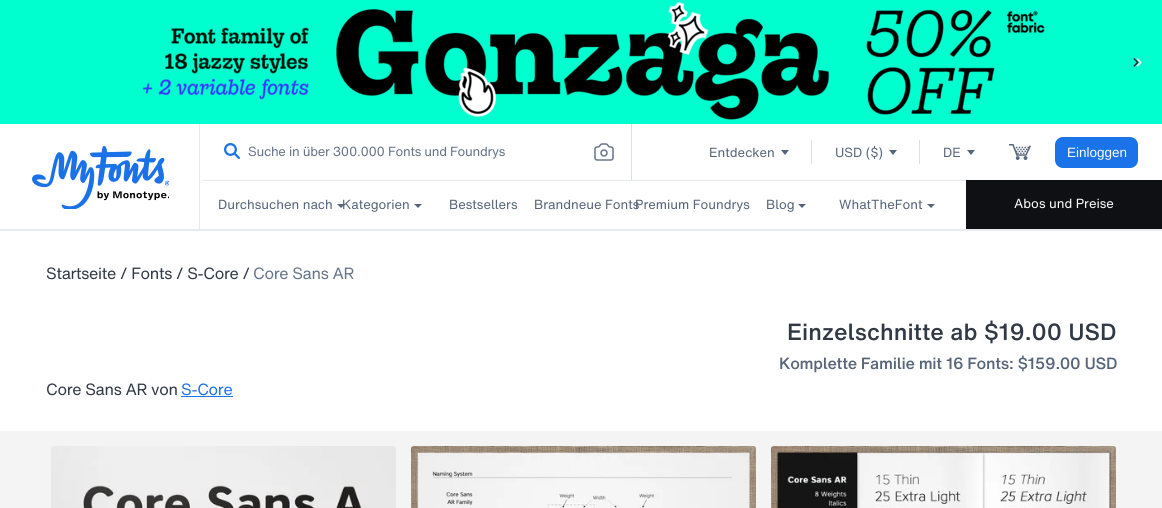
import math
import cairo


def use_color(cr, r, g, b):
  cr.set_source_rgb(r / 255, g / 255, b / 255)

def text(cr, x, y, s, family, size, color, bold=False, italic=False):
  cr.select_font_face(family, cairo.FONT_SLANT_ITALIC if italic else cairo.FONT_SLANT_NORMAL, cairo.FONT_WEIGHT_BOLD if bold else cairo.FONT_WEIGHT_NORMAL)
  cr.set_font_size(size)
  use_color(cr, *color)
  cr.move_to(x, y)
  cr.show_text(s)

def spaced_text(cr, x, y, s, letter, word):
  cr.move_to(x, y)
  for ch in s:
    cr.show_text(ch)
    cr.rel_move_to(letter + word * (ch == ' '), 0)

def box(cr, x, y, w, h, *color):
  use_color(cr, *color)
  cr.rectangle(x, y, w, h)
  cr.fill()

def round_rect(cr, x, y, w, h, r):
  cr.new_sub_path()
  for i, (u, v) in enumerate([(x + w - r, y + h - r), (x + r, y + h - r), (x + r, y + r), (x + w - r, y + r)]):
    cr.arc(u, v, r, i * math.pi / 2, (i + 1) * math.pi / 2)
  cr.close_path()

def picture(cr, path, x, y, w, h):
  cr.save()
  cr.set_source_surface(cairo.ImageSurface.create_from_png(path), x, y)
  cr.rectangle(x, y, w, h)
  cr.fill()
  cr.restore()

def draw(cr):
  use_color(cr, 255, 255, 255)
  cr.paint()
  box(cr, 0, 229, 1162, 2, 231, 234, 238)
  box(cr, 0, 0, 1162, 124, 0, 255, 207)
  picture(cr, "img_01.png", 142, 1, 903, 119)
  picture(cr, "img_02.png", 1133, 58, 9, 9)
  box(cr, 199, 124, 1, 105, 231, 234, 238)
  picture(cr, "img_03.png", 32, 146, 137, 63)
  box(cr, 631, 124, 1, 56, 219, 223, 229)
  picture(cr, "img_04.png", 224, 143, 16, 16)
  picture(cr, "img_05.png", 594, 143, 20, 18)
  use_color(cr, 87, 101, 121)
  cr.new_path()
  cr.move_to(781, 150)
  cr.line_to(789, 150)
  cr.line_to(785, 155)
  cr.close_path()
  cr.fill()
  box(cr, 811, 140, 1, 24, 219, 223, 229)
  use_color(cr, 87, 101, 121)
  cr.new_path()
  cr.move_to(889, 150)
  cr.line_to(897, 150)
  cr.line_to(893, 155)
  cr.close_path()
  cr.fill()
  box(cr, 919, 140, 1, 24, 219, 223, 229)
  use_color(cr, 87, 101, 121)
  cr.new_path()
  cr.move_to(967, 150)
  cr.line_to(975, 150)
  cr.line_to(971, 155)
  cr.close_path()
  cr.fill()
  picture(cr, "img_06.png", 1009, 144, 22, 16)
  use_color(cr, 26, 115, 232)
  round_rect(cr, 1055, 137, 83, 31, 8)
  cr.fill()
  box(cr, 202, 180, 764, 1, 231, 234, 238)
  use_color(cr, 87, 101, 121)
  cr.new_path()
  cr.move_to(337, 204)
  cr.line_to(345, 204)
  cr.line_to(341, 208)
  cr.close_path()
  cr.fill()
  cr.new_path()
  cr.move_to(414, 204)
  cr.line_to(422, 204)
  cr.line_to(418, 208)
  cr.close_path()
  cr.fill()
  cr.new_path()
  cr.move_to(798, 204)
  cr.line_to(806, 204)
  cr.line_to(802, 208)
  cr.close_path()
  cr.fill()
  cr.new_path()
  cr.move_to(927, 204)
  cr.line_to(935, 204)
  cr.line_to(931, 208)
  cr.close_path()
  cr.fill()
  box(cr, 966, 180, 196, 49, 14, 16, 19)
  box(cr, 181, 396, 52, 1, 26, 115, 232)
  box(cr, 0, 431, 1162, 77, 244, 244, 244)
  picture(cr, "img_07.png", 51, 446, 345, 62)
  picture(cr, "img_08.png", 411, 446, 345, 62)
  picture(cr, "img_09.png", 771, 446, 345, 62)
  cr.select_font_face("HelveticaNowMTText")
  cr.set_font_size(13)
  use_color(cr, 102, 116, 136)
  spaced_text(cr, 248, 156, "Suche in über 300.000 Fonts und Foundrys", -0.25, 0)
  text(cr, 709, 157, "Entdecken", "HelveticaNowMTText", 13, (87, 101, 121))
  text(cr, 835, 157, "USD ($)", "HelveticaNowMTText", 13, (87, 101, 121))
  text(cr, 943, 157, "DE", "HelveticaNowMTText", 13, (87, 101, 121))
  text(cr, 1067, 157, "Einloggen", "Liberation Sans", 13.5, (255, 255, 255))
  text(cr, 218, 209, "Durchsuchen nach", "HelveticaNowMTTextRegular", 13, (87, 101, 121))
  text(cr, 342, 209, "Kategorien", "HelveticaNowMTTextRegular", 13, (87, 101, 121))
  text(cr, 449, 209, "Bestsellers", "HelveticaNowMTTextRegular", 13, (87, 101, 121))
  text(cr, 534, 209, "Brandneue Fonts", "HelveticaNowMTTextRegular", 13, (87, 101, 121))
  text(cr, 635, 209, "Premium Foundrys", "HelveticaNowMTTextRegular", 13, (87, 101, 121))
  text(cr, 766, 209, "Blog", "HelveticaNowMTTextRegular", 13, (87, 101, 121))
  text(cr, 839, 209, "WhatTheFont", "HelveticaNowMTTextRegular", 13, (87, 101, 121))
  text(cr, 1014, 208, "Abos und Preise", "HelveticaNowMTTextRegular", 13, (255, 255, 255))
  cr.set_font_size(16)
  use_color(cr, 49, 57, 69)
  spaced_text(cr, 46, 279, "Startseite / Fonts / S-Core /", -0.3, 0)
  use_color(cr, 102, 116, 136)
  spaced_text(cr, 253, 279, "Core Sans AR", -0.3, 0)
  text(cr, 787, 340, "Einzelschnitte ab $19.00 USD", "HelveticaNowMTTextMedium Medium", 23, (49, 57, 69))
  cr.set_font_size(16)
  use_color(cr, 87, 101, 121)
  spaced_text(cr, 779, 369, "Komplette Familie mit 16 Fonts: $159.00 USD", -0.3, 0)
  cr.select_font_face("HelveticaNowMTText")
  use_color(cr, 49, 57, 69)
  spaced_text(cr, 46, 395, "Core Sans AR von", -0.3, 0)
  use_color(cr, 26, 115, 232)
  spaced_text(cr, 181, 395, "S-Core", -0.3, 0)


surface = cairo.ImageSurface(cairo.FORMAT_RGB24, 1162, 508)
cr = cairo.Context(surface)
options = cairo.FontOptions()
options.set_hint_metrics(cairo.HINT_METRICS_OFF)
options.set_hint_style(cairo.HINT_STYLE_NONE)
cr.set_font_options(options)
cr.set_miter_limit(4)
draw(cr)
surface.write_to_png("out.png")
